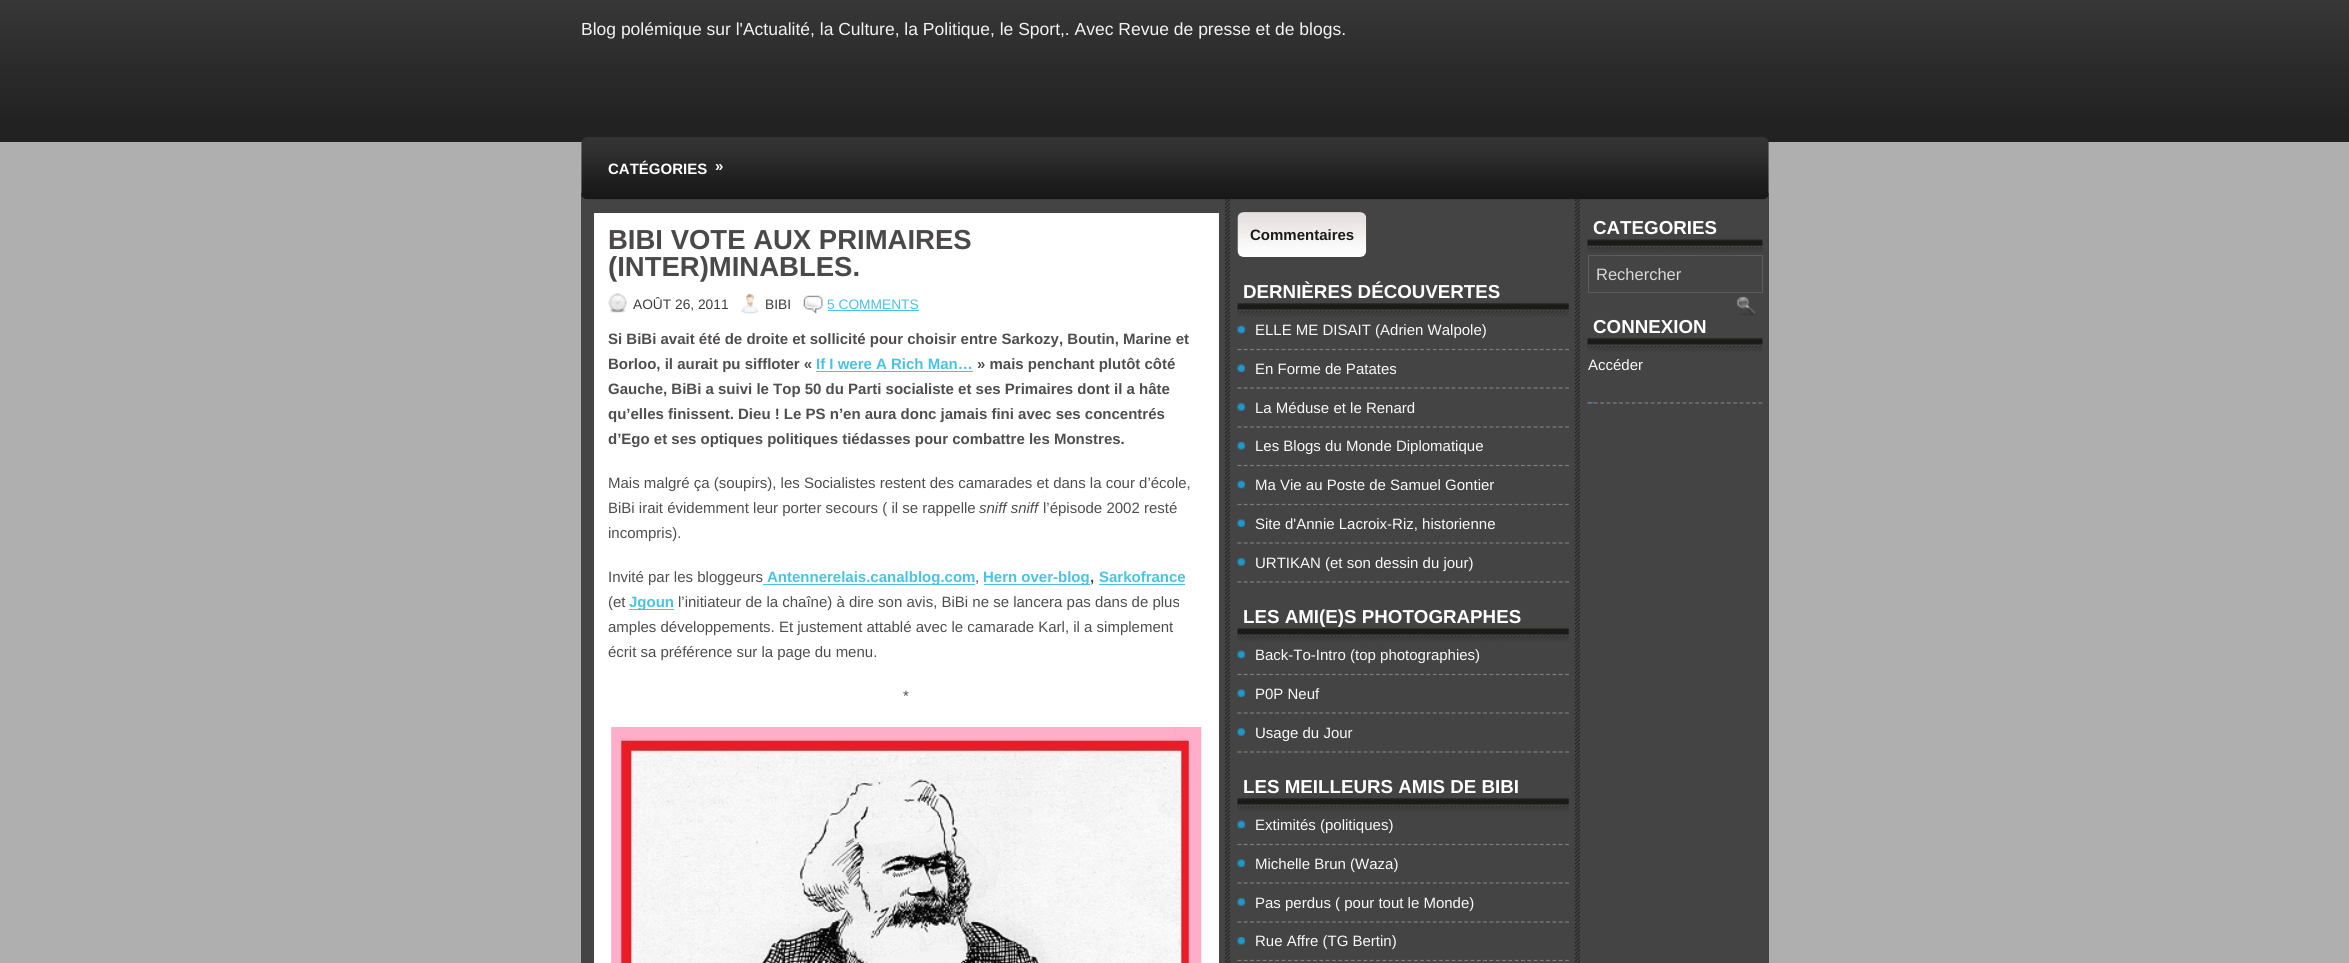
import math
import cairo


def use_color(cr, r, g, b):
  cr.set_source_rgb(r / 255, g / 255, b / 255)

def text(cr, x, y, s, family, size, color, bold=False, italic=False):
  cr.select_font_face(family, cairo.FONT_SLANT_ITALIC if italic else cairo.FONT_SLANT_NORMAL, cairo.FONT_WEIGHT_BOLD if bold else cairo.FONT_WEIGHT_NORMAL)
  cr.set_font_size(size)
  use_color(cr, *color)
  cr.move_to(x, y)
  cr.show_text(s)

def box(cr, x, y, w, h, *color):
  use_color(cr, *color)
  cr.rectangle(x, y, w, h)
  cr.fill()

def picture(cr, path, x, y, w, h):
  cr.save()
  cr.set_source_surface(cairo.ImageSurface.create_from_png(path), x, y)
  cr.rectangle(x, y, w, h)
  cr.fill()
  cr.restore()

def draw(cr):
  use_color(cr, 175, 175, 175)
  cr.paint()
  picture(cr, "img_01.png", 0, 0, 2349, 142)
  box(cr, 581, 193, 1188, 770, 68, 68, 68)
  picture(cr, "img_03.png", 1225, 199, 355, 764)
  picture(cr, "img_02.png", 581, 137, 1188, 63)
  box(cr, 595, 214, 623, 749, 255, 255, 255)
  box(cr, 594, 213, 625, 1, 249, 249, 249)
  box(cr, 1218, 213, 1, 750, 249, 249, 249)
  box(cr, 594, 213, 1, 750, 249, 249, 249)
  picture(cr, "img_04.png", 608, 293, 20, 20)
  picture(cr, "img_05.png", 741, 293, 18, 21)
  picture(cr, "img_06.png", 803, 295, 20, 19)
  box(cr, 828, 310, 91, 1, 74, 194, 225)
  box(cr, 816, 371, 157, 1, 74, 194, 225)
  box(cr, 763, 584, 212, 1, 74, 194, 225)
  box(cr, 984, 584, 106, 1, 74, 194, 225)
  box(cr, 1099, 584, 86, 1, 74, 194, 225)
  box(cr, 629, 609, 45, 1, 74, 194, 225)
  picture(cr, "img_07.png", 611, 727, 591, 236)
  picture(cr, "img_08.png", 1237, 212, 130, 45)
  picture(cr, "img_09.png", 1237, 303, 332, 14)
  picture(cr, "img_10.png", 1237, 325, 8, 9)
  cr.new_path()
  cr.move_to(1237.5, 349.5)
  cr.line_to(1569, 349.5)
  use_color(cr, 131, 124, 124)
  cr.set_line_width(1.2)
  cr.set_dash([3.75, 2.55])
  cr.stroke()
  picture(cr, "img_11.png", 1237, 364, 8, 8)
  cr.new_path()
  cr.move_to(1237.5, 388)
  cr.line_to(1569, 388)
  cr.stroke()
  picture(cr, "img_12.png", 1237, 403, 8, 8)
  cr.new_path()
  cr.move_to(1237.5, 427)
  cr.line_to(1569, 427)
  cr.stroke()
  picture(cr, "img_13.png", 1237, 442, 8, 8)
  cr.new_path()
  cr.move_to(1237.5, 465.5)
  cr.line_to(1569, 465.5)
  cr.stroke()
  picture(cr, "img_10.png", 1237, 480, 8, 9)
  cr.new_path()
  cr.move_to(1237.5, 504.5)
  cr.line_to(1569, 504.5)
  cr.stroke()
  picture(cr, "img_11.png", 1237, 519, 8, 8)
  cr.new_path()
  cr.move_to(1237.5, 543)
  cr.line_to(1569, 543)
  cr.stroke()
  picture(cr, "img_12.png", 1237, 558, 8, 8)
  cr.new_path()
  cr.move_to(1237.5, 582)
  cr.line_to(1569, 582)
  cr.stroke()
  picture(cr, "img_14.png", 1237, 628, 332, 14)
  picture(cr, "img_10.png", 1237, 650, 8, 9)
  cr.new_path()
  cr.move_to(1237.5, 674.5)
  cr.line_to(1569, 674.5)
  cr.stroke()
  picture(cr, "img_11.png", 1237, 689, 8, 8)
  cr.new_path()
  cr.move_to(1237.5, 713)
  cr.line_to(1569, 713)
  cr.stroke()
  picture(cr, "img_12.png", 1237, 728, 8, 8)
  cr.new_path()
  cr.move_to(1237.5, 752)
  cr.line_to(1569, 752)
  cr.stroke()
  picture(cr, "img_15.png", 1237, 798, 332, 14)
  picture(cr, "img_10.png", 1237, 820, 8, 9)
  cr.new_path()
  cr.move_to(1237.5, 844.5)
  cr.line_to(1569, 844.5)
  cr.stroke()
  picture(cr, "img_11.png", 1237, 859, 8, 8)
  cr.new_path()
  cr.move_to(1237.5, 883)
  cr.line_to(1569, 883)
  cr.stroke()
  picture(cr, "img_12.png", 1237, 898, 8, 8)
  cr.new_path()
  cr.move_to(1237.5, 922)
  cr.line_to(1569, 922)
  cr.stroke()
  picture(cr, "img_13.png", 1237, 937, 8, 8)
  cr.new_path()
  cr.move_to(1237.5, 960.5)
  cr.line_to(1569, 960.5)
  cr.stroke()
  picture(cr, "img_16.png", 1587, 239, 176, 14)
  cr.rectangle(1588.5, 255.5, 174, 37)
  use_color(cr, 93, 92, 92)
  cr.set_line_width(1)
  cr.set_dash([])
  cr.stroke()
  picture(cr, "img_17.png", 1736, 296, 20, 20)
  picture(cr, "img_18.png", 1587, 338, 176, 14)
  picture(cr, "img_19.png", 1587, 402, 8, 2)
  cr.new_path()
  cr.move_to(1587.5, 403)
  cr.line_to(1762.5, 403)
  use_color(cr, 131, 124, 124)
  cr.set_line_width(1.2)
  cr.set_dash([3.75, 2.59])
  cr.stroke()
  text(cr, 581, 35, "Blog polémique sur l'Actualité, la Culture, la Politique, le Sport,. Avec Revue de presse et de blogs.", "Liberation Sans", 17.5, (244, 243, 243))
  text(cr, 608, 174, "CATÉGORIES", "Liberation Sans", 15, (255, 255, 255), bold=True)
  text(cr, 715, 171, "»", "Liberation Sans", 15, (255, 255, 255), bold=True)
  text(cr, 608, 249, "BIBI VOTE AUX PRIMAIRES", "Liberation Sans", 27.5, (74, 72, 72), bold=True)
  text(cr, 608, 276, "(INTER)MINABLES.", "Liberation Sans", 27.5, (74, 72, 72), bold=True)
  text(cr, 633, 309, "AOÛT 26, 2011", "Liberation Sans", 13.75, (62, 60, 60))
  text(cr, 765, 309, "BIBI", "Liberation Sans", 13.75, (62, 60, 60))
  text(cr, 827, 309, "5 COMMENTS", "Liberation Sans", 13.75, (74, 194, 225))
  text(cr, 608, 344, "Si BiBi avait été de droite et sollicité pour choisir entre Sarkozy, Boutin, Marine et", "Liberation Sans", 15, (80, 77, 77), bold=True)
  text(cr, 608, 369, "Borloo, il aurait pu siffloter «", "Liberation Sans", 15, (80, 77, 77), bold=True)
  text(cr, 816, 369, "If I were A Rich Man…", "Liberation Sans", 15, (74, 194, 225), bold=True)
  text(cr, 977, 369, "» mais penchant plutôt côté", "Liberation Sans", 15, (80, 77, 77), bold=True)
  text(cr, 608, 394, "Gauche, BiBi a suivi le Top 50 du Parti socialiste et ses Primaires dont il a hâte", "Liberation Sans", 15, (80, 77, 77), bold=True)
  text(cr, 608, 419, "qu’elles finissent. Dieu ! Le PS n’en aura donc jamais fini avec ses concentrés", "Liberation Sans", 15, (80, 77, 77), bold=True)
  text(cr, 608, 444, "d’Ego et ses optiques politiques tiédasses pour combattre les Monstres.", "Liberation Sans", 15, (80, 77, 77), bold=True)
  text(cr, 608, 488, "Mais malgré ça (soupirs), les Socialistes restent des camarades et dans la cour d’école,", "Liberation Sans", 15, (80, 77, 77))
  text(cr, 608, 513, "BiBi irait évidemment leur porter secours ( il se rappelle", "Liberation Sans", 15, (80, 77, 77))
  text(cr, 979, 513, "sniff sniff", "Liberation Sans", 15, (80, 77, 77), italic=True)
  text(cr, 1043, 513, "l’épisode 2002 resté", "Liberation Sans", 15, (80, 77, 77))
  text(cr, 608, 538, "incompris).", "Liberation Sans", 15, (80, 77, 77))
  text(cr, 608, 582, "Invité par les bloggeurs", "Liberation Sans", 15, (80, 77, 77))
  text(cr, 767, 582, "Antennerelais.canalblog.com", "Liberation Sans", 15, (74, 194, 225), bold=True)
  text(cr, 975, 582, ",", "Liberation Sans", 15, (80, 77, 77))
  text(cr, 983, 582, "Hern over-blog", "Liberation Sans", 15, (74, 194, 225), bold=True)
  text(cr, 1090, 582, ",", "Liberation Sans", 15, (80, 77, 77), bold=True)
  text(cr, 1099, 582, "Sarkofrance", "Liberation Sans", 15, (74, 194, 225), bold=True)
  text(cr, 608, 607, "(et", "Liberation Sans", 15, (80, 77, 77))
  text(cr, 629, 607, "Jgoun", "Liberation Sans", 15, (74, 194, 225), bold=True)
  text(cr, 678, 607, "l’initiateur de la chaîne) à dire son avis, BiBi ne se lancera pas dans de plus", "Liberation Sans", 15, (80, 77, 77))
  text(cr, 608, 632, "amples développements. Et justement attablé avec le camarade Karl, il a simplement", "Liberation Sans", 15, (80, 77, 77))
  text(cr, 608, 657, "écrit sa préférence sur la page du menu.", "Liberation Sans", 15, (80, 77, 77))
  text(cr, 903, 701, "*", "Liberation Sans", 15, (80, 77, 77))
  text(cr, 1250, 240, "Commentaires", "Liberation Sans", 15, (26, 26, 25), bold=True)
  text(cr, 1243, 298, "DERNIÈRES DÉCOUVERTES", "Liberation Sans", 18.75, (255, 255, 255), bold=True)
  text(cr, 1255, 335, "ELLE ME DISAIT (Adrien Walpole)", "Liberation Sans", 15, (250, 249, 249))
  text(cr, 1255, 374, "En Forme de Patates", "Liberation Sans", 15, (250, 249, 249))
  text(cr, 1255, 413, "La Méduse et le Renard", "Liberation Sans", 15, (250, 249, 249))
  text(cr, 1255, 451, "Les Blogs du Monde Diplomatique", "Liberation Sans", 15, (250, 249, 249))
  text(cr, 1255, 490, "Ma Vie au Poste de Samuel Gontier", "Liberation Sans", 15, (250, 249, 249))
  text(cr, 1255, 529, "Site d'Annie Lacroix-Riz, historienne", "Liberation Sans", 15, (250, 249, 249))
  text(cr, 1255, 568, "URTIKAN (et son dessin du jour)", "Liberation Sans", 15, (250, 249, 249))
  text(cr, 1243, 623, "LES AMI(E)S PHOTOGRAPHES", "Liberation Sans", 18.75, (255, 255, 255), bold=True)
  text(cr, 1255, 660, "Back-To-Intro (top photographies)", "Liberation Sans", 15, (250, 249, 249))
  text(cr, 1255, 699, "P0P Neuf", "Liberation Sans", 15, (250, 249, 249))
  text(cr, 1255, 738, "Usage du Jour", "Liberation Sans", 15, (250, 249, 249))
  text(cr, 1243, 793, "LES MEILLEURS AMIS DE BIBI", "Liberation Sans", 18.75, (255, 255, 255), bold=True)
  text(cr, 1255, 830, "Extimités (politiques)", "Liberation Sans", 15, (250, 249, 249))
  text(cr, 1255, 869, "Michelle Brun (Waza)", "Liberation Sans", 15, (250, 249, 249))
  text(cr, 1255, 908, "Pas perdus ( pour tout le Monde)", "Liberation Sans", 15, (250, 249, 249))
  text(cr, 1255, 946, "Rue Affre (TG Bertin)", "Liberation Sans", 15, (250, 249, 249))
  text(cr, 1593, 234, "CATEGORIES", "Liberation Sans", 18.75, (255, 255, 255), bold=True)
  text(cr, 1596, 280, "Rechercher", "Liberation Sans", 16.5, (215, 215, 215))
  text(cr, 1593, 333, "CONNEXION", "Liberation Sans", 18.75, (255, 255, 255), bold=True)
  text(cr, 1588, 370, "Accéder", "Liberation Sans", 15, (250, 249, 249))


surface = cairo.ImageSurface(cairo.FORMAT_RGB24, 2349, 963)
cr = cairo.Context(surface)
options = cairo.FontOptions()
options.set_hint_metrics(cairo.HINT_METRICS_OFF)
options.set_hint_style(cairo.HINT_STYLE_NONE)
cr.set_font_options(options)
cr.set_miter_limit(4)
draw(cr)
surface.write_to_png("out.png")
